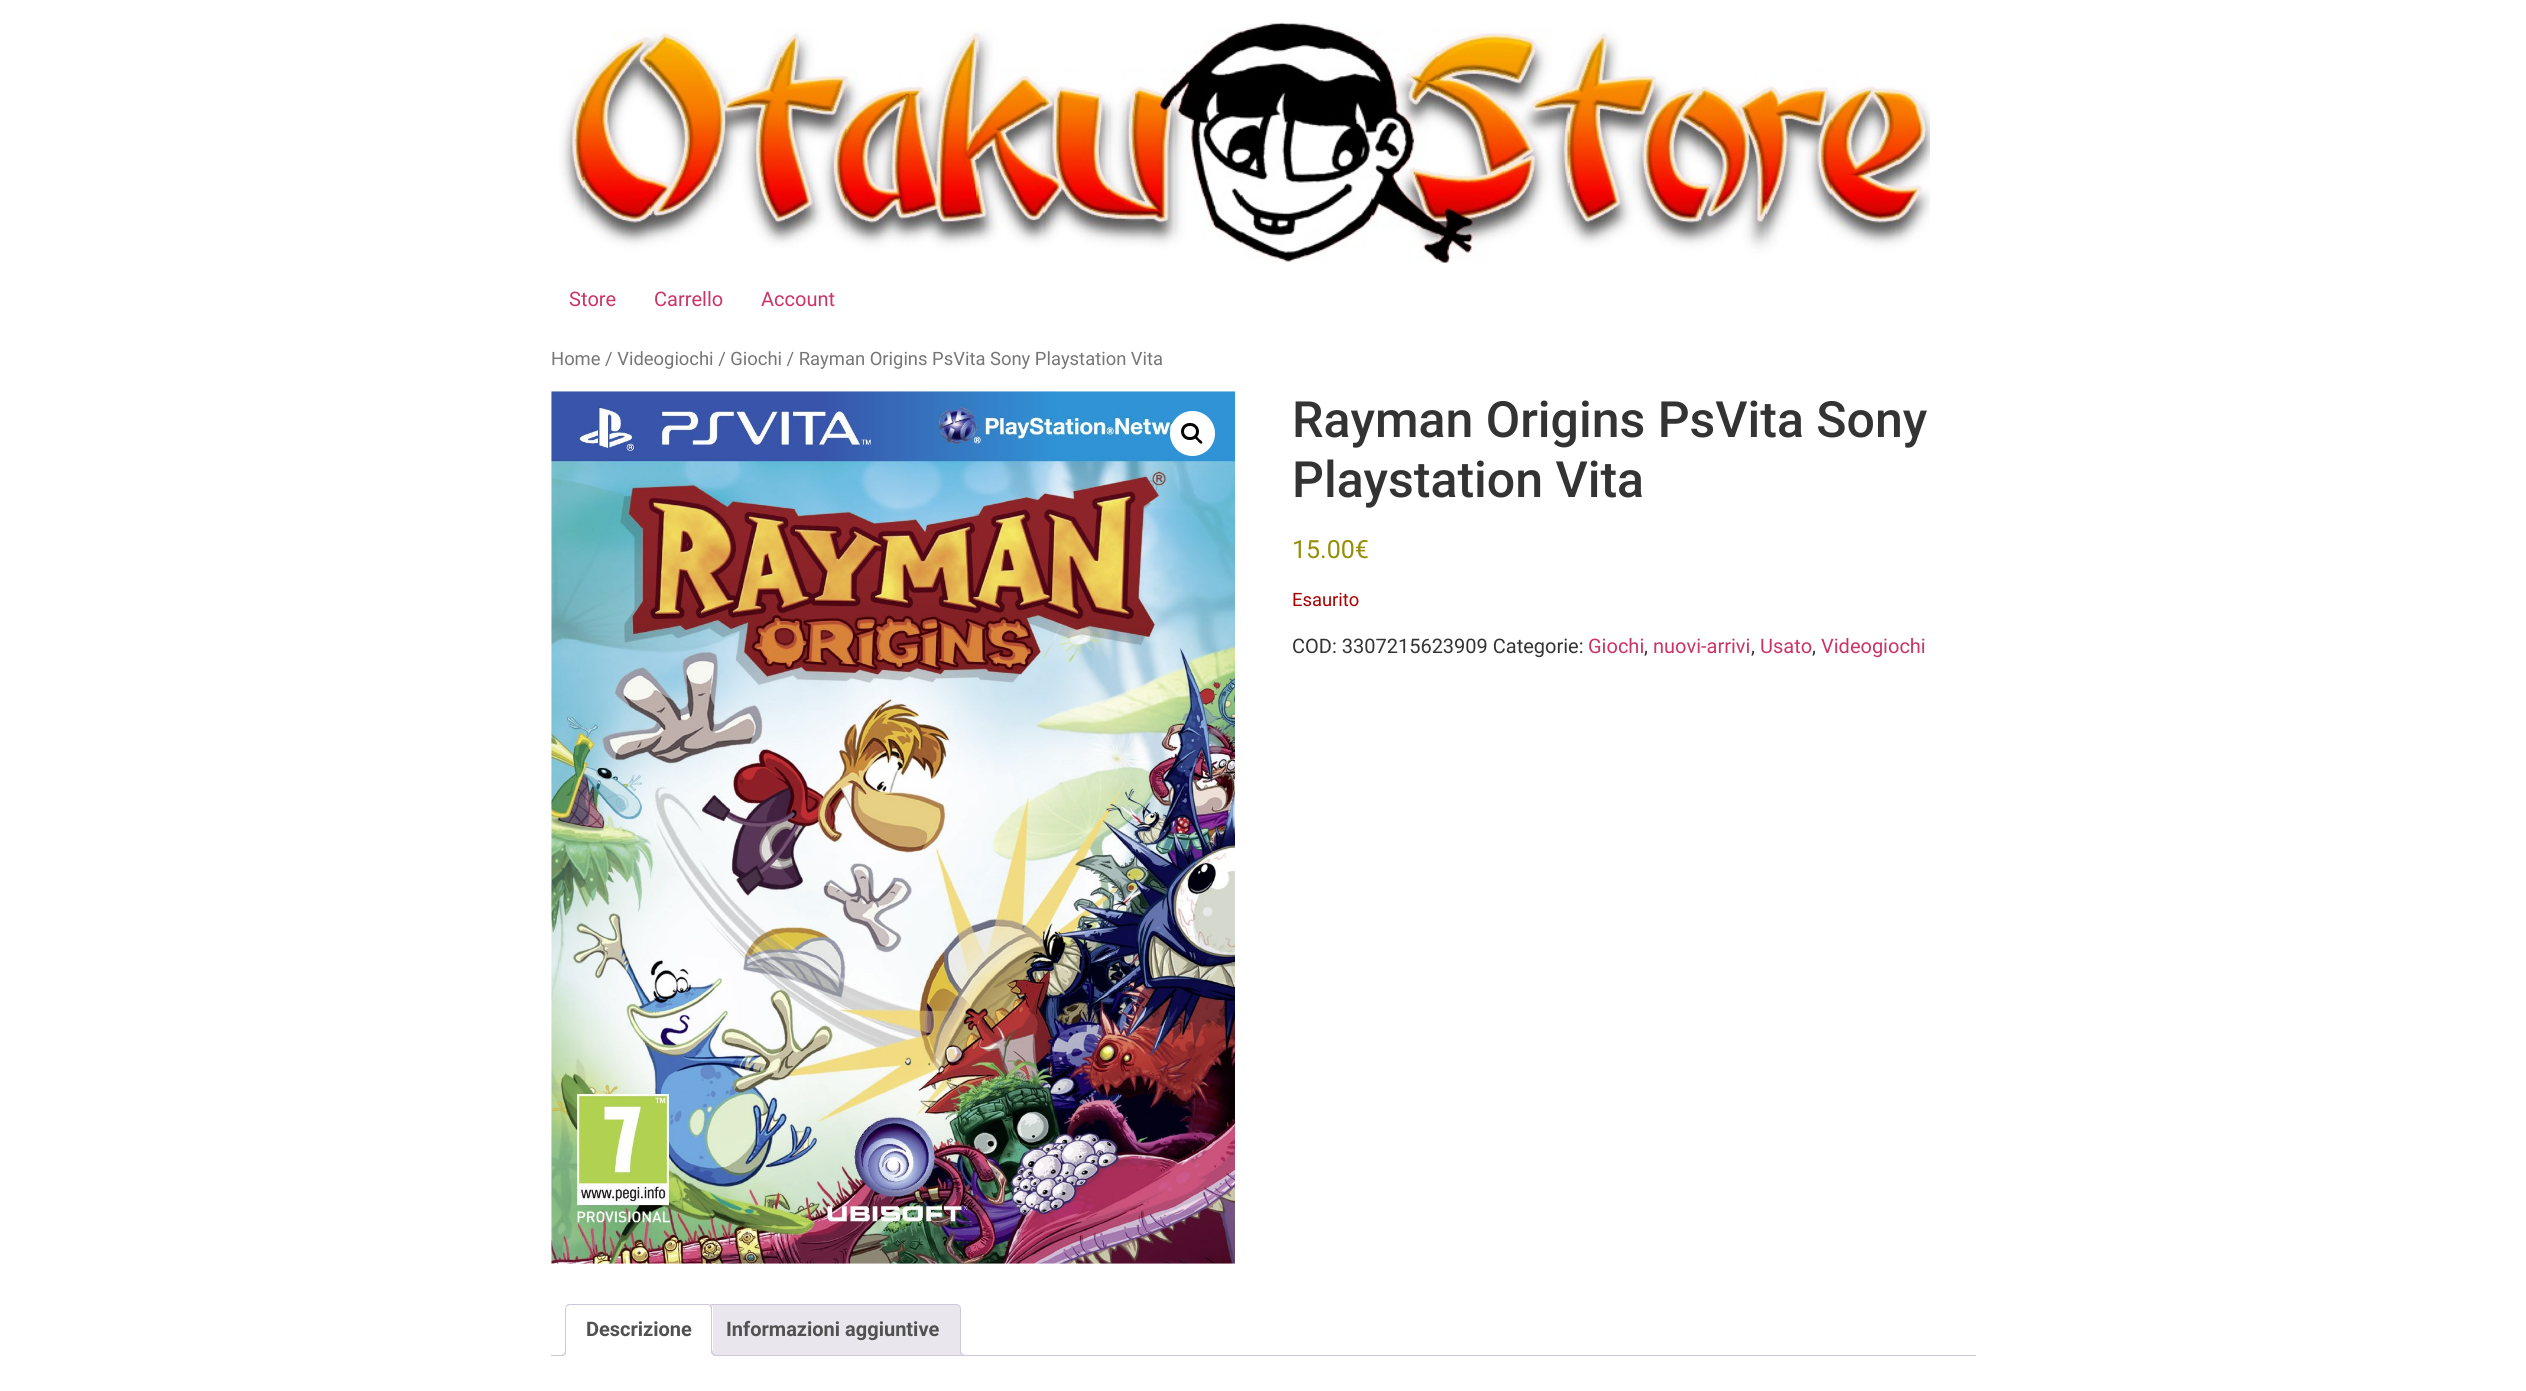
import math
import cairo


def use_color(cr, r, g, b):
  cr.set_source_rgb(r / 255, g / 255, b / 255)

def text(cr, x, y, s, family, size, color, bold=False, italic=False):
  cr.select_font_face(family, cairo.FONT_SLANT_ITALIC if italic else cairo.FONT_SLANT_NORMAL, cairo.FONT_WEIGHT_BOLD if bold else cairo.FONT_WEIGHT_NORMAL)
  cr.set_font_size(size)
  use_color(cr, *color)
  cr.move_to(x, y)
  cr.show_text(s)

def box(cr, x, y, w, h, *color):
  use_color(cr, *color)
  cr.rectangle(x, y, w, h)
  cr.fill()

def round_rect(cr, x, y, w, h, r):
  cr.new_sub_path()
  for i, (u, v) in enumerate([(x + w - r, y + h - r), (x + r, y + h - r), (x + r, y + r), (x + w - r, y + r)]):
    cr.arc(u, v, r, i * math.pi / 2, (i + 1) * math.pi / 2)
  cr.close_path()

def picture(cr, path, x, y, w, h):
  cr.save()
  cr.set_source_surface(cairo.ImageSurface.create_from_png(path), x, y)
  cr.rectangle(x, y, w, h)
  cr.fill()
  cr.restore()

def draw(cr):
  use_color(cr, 255, 255, 255)
  cr.paint()
  picture(cr, "img_01.png", 559, 22, 1371, 241)
  picture(cr, "img_02.png", 551, 391, 684, 873)
  use_color(cr, 255, 255, 255)
  cr.arc(1192.5, 433.5, 22.5, 0, 2 * math.pi)
  cr.fill()
  round_rect(cr, 1182.5, 424.5, 15, 14, 7)
  use_color(cr, 0, 0, 0)
  cr.set_line_width(3)
  cr.stroke()
  cr.new_path()
  cr.move_to(1195, 436)
  cr.curve_to(1196, 435, 1198.5, 438, 1199, 439)
  cr.curve_to(1200, 439.5, 1203.5, 442, 1202, 443.5)
  cr.curve_to(1200.5, 444.5, 1198, 441.5, 1197.5, 440.5)
  cr.curve_to(1196.5, 440, 1193.5, 437.5, 1195, 436)
  cr.close_path()
  cr.fill()
  use_color(cr, 233, 230, 237)
  cr.new_path()
  cr.move_to(710, 1304.5)
  cr.line_to(956, 1304.5)
  cr.curve_to(958.5, 1304.5, 960.5, 1306.5, 960.5, 1309)
  cr.line_to(960.5, 1355.5)
  cr.line_to(705.5, 1355.5)
  cr.line_to(705.5, 1309)
  cr.curve_to(705.5, 1306.5, 707.5, 1304.5, 710, 1304.5)
  cr.close_path()
  cr.fill_preserve()
  use_color(cr, 207, 200, 216)
  cr.set_line_width(1)
  cr.stroke()
  cr.save()
  cr.rectangle(551, 1304, 1425, 52)
  cr.clip()
  use_color(cr, 233, 230, 237)
  cr.new_path()
  cr.move_to(958, 1353)
  cr.curve_to(958, 1357, 960, 1359, 964, 1359)
  cr.line_to(964, 1356)
  cr.curve_to(962.5, 1356, 961, 1354.5, 960.5, 1353)
  cr.close_path()
  cr.fill()
  cr.restore()
  cr.set_fill_rule(cairo.FILL_RULE_EVEN_ODD)
  cr.new_path()
  cr.move_to(960, 1350)
  cr.line_to(966, 1350)
  cr.line_to(966, 1356)
  cr.curve_to(963, 1356, 960, 1355, 960, 1351)
  cr.close_path()
  cr.move_to(961, 1350)
  cr.line_to(966, 1350)
  cr.line_to(966, 1355)
  cr.curve_to(964, 1355, 961, 1354, 961, 1351)
  cr.close_path()
  cr.fill()
  box(cr, 551, 1355, 1425, 1, 207, 200, 216)
  use_color(cr, 255, 255, 255)
  cr.new_path()
  cr.move_to(570, 1304)
  cr.line_to(708, 1304)
  cr.curve_to(711, 1304, 713, 1306, 713, 1309)
  cr.line_to(713, 1356)
  cr.line_to(565, 1356)
  cr.line_to(565, 1309)
  cr.curve_to(565, 1306, 567, 1304, 570, 1304)
  cr.close_path()
  cr.fill()
  use_color(cr, 207, 200, 216)
  cr.set_fill_rule(cairo.FILL_RULE_WINDING)
  cr.new_path()
  cr.move_to(570, 1304)
  cr.curve_to(569, 1304, 567, 1304, 567, 1305)
  cr.line_to(567, 1306)
  cr.line_to(570, 1305)
  cr.line_to(708, 1305)
  cr.line_to(710, 1306)
  cr.line_to(711, 1305)
  cr.curve_to(710, 1305, 709, 1304, 708, 1304)
  cr.close_path()
  cr.fill()
  cr.new_path()
  cr.move_to(712, 1356)
  cr.line_to(712, 1309)
  cr.curve_to(712, 1308, 712, 1306, 711, 1305)
  cr.line_to(710, 1306)
  cr.line_to(711, 1309)
  cr.line_to(711, 1355)
  cr.close_path()
  cr.fill()
  use_color(cr, 255, 255, 255)
  cr.new_path()
  cr.move_to(712, 1356)
  cr.line_to(565, 1356)
  cr.line_to(566, 1355)
  cr.line_to(711, 1355)
  cr.close_path()
  cr.fill()
  use_color(cr, 207, 200, 216)
  cr.new_path()
  cr.move_to(565, 1309)
  cr.line_to(565, 1356)
  cr.line_to(566, 1355)
  cr.line_to(566, 1308)
  cr.line_to(567, 1306)
  cr.line_to(567, 1305)
  cr.curve_to(566, 1306, 565, 1307, 565, 1309)
  cr.close_path()
  cr.fill()
  cr.save()
  cr.rectangle(551, 1304, 1425, 52)
  cr.clip()
  use_color(cr, 255, 255, 255)
  cr.new_path()
  cr.move_to(563, 1356)
  cr.line_to(563, 1359)
  cr.curve_to(567, 1359, 569, 1357, 569, 1353)
  cr.line_to(566, 1353)
  cr.curve_to(565.5, 1354.5, 564.5, 1355.5, 563, 1356)
  cr.close_path()
  cr.fill()
  cr.restore()
  cr.set_fill_rule(cairo.FILL_RULE_EVEN_ODD)
  cr.new_path()
  cr.move_to(560, 1350)
  cr.line_to(566, 1350)
  cr.curve_to(566, 1354.5, 564.5, 1356, 560, 1356)
  cr.close_path()
  cr.move_to(560, 1350)
  cr.line_to(565, 1350)
  cr.curve_to(565, 1353.5, 563.5, 1355, 560, 1355)
  cr.close_path()
  cr.fill()
  cr.save()
  cr.set_fill_rule(cairo.FILL_RULE_WINDING)
  cr.rectangle(551, 1304, 1425, 52)
  cr.clip()
  use_color(cr, 255, 255, 255)
  cr.new_path()
  cr.move_to(709, 1353)
  cr.curve_to(709, 1357, 711, 1359, 715, 1359)
  cr.line_to(715, 1356)
  cr.curve_to(713.5, 1355.5, 712, 1354.5, 711.5, 1353)
  cr.close_path()
  cr.fill()
  cr.restore()
  cr.new_path()
  cr.move_to(711, 1350)
  cr.line_to(717.5, 1350)
  cr.line_to(717.5, 1356)
  cr.curve_to(714.5, 1356, 711, 1355, 711, 1351)
  cr.close_path()
  cr.move_to(712.5, 1350)
  cr.line_to(717.5, 1350)
  cr.line_to(717.5, 1355)
  cr.curve_to(715, 1355, 712.5, 1354, 712.5, 1351)
  cr.close_path()
  cr.fill()
  text(cr, 569, 306, "Store", "Roboto", 20, (204, 51, 102))
  text(cr, 654, 306, "Carrello", "Roboto", 20, (204, 51, 102))
  text(cr, 761, 306, "Account", "Roboto", 20, (204, 51, 102))
  text(cr, 551, 365, "Home / Videogiochi / Giochi / Rayman Origins PsVita Sony Playstation Vita", "Roboto", 18.4, (118, 118, 118))
  text(cr, 1292, 437, "Rayman Origins PsVita Sony", "Roboto Medium", 50, (51, 51, 51))
  text(cr, 1292, 497, "Playstation Vita", "Roboto Medium", 50, (51, 51, 51))
  text(cr, 1292, 558, "15.00€", "Roboto", 25, (149, 142, 9))
  text(cr, 1292, 606, "Esaurito", "Roboto", 18.4, (170, 0, 0))
  text(cr, 1292, 653, "COD: 3307215623909 Categorie:", "Roboto", 20, (51, 51, 51))
  text(cr, 1588, 653, "Giochi", "Roboto", 20, (204, 51, 102))
  text(cr, 1644, 653, ",", "Roboto", 20, (51, 51, 51))
  text(cr, 1653, 653, "nuovi-arrivi", "Roboto", 20, (204, 51, 102))
  text(cr, 1751, 653, ",", "Roboto", 20, (51, 51, 51))
  text(cr, 1760, 653, "Usato", "Roboto", 20, (204, 51, 102))
  text(cr, 1812, 653, ",", "Roboto", 20, (51, 51, 51))
  text(cr, 1821, 653, "Videogiochi", "Roboto", 20, (204, 51, 102))
  text(cr, 586, 1336, "Descrizione", "Roboto", 20, (81, 81, 81), bold=True)
  text(cr, 726, 1336, "Informazioni aggiuntive", "Roboto", 20, (81, 81, 81), bold=True)


surface = cairo.ImageSurface(cairo.FORMAT_RGB24, 2526, 1391)
cr = cairo.Context(surface)
options = cairo.FontOptions()
options.set_hint_metrics(cairo.HINT_METRICS_OFF)
options.set_hint_style(cairo.HINT_STYLE_NONE)
cr.set_font_options(options)
cr.set_miter_limit(4)
draw(cr)
surface.write_to_png("out.png")
